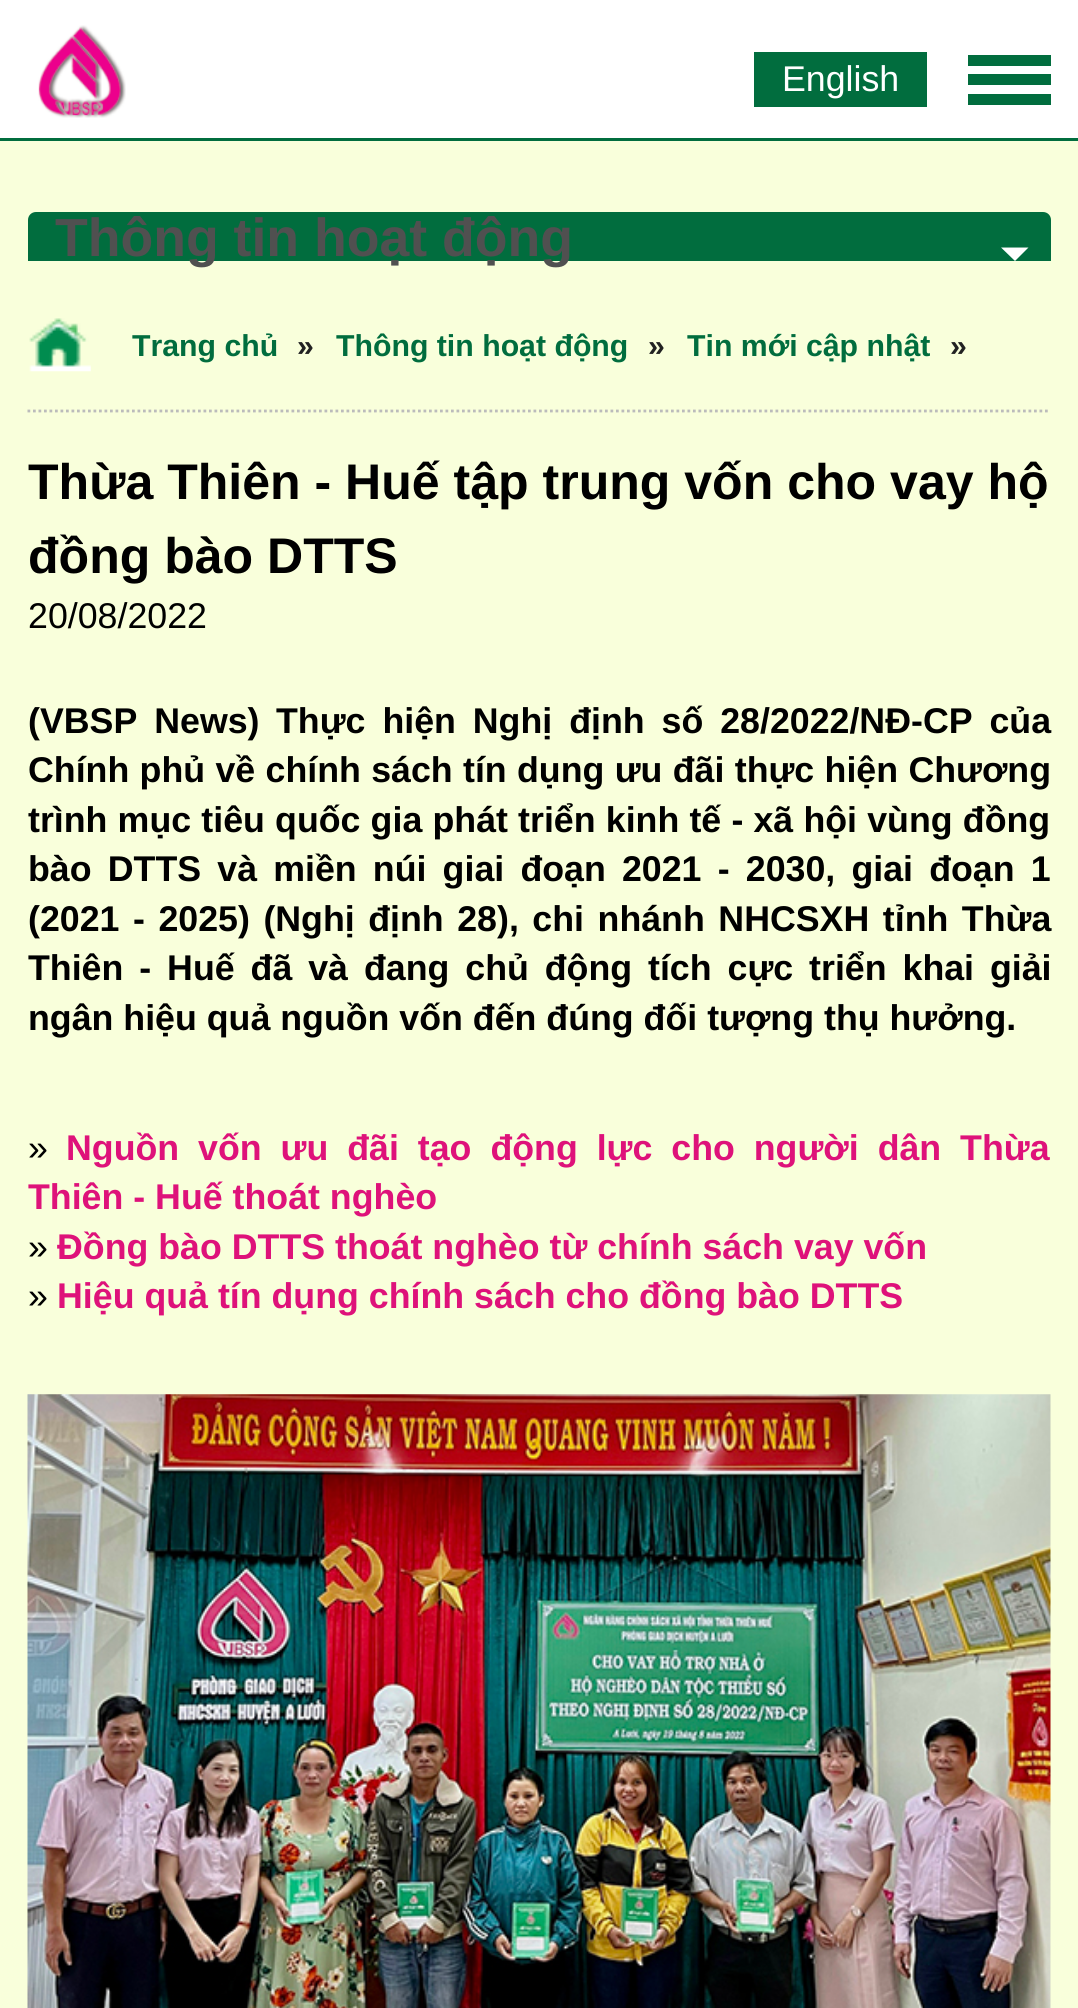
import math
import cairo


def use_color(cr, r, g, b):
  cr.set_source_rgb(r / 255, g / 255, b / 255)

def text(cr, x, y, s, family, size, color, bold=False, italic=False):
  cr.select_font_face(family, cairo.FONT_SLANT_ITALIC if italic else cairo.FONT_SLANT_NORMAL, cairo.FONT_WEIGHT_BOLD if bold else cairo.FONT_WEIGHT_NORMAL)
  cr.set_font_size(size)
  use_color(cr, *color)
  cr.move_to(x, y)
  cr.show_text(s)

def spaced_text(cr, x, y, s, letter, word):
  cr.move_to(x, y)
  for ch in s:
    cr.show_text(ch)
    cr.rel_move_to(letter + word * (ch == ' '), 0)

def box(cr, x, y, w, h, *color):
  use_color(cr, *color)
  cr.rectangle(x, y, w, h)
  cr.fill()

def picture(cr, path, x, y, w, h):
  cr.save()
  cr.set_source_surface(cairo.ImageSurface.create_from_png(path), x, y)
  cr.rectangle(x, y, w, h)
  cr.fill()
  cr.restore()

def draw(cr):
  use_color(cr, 249, 255, 219)
  cr.paint()
  box(cr, 0, 0, 1078, 138, 255, 255, 255)
  box(cr, 0, 138, 1078, 3, 1, 109, 62)
  picture(cr, "img_01.png", 38, 25, 88, 93)
  box(cr, 754, 52, 173, 55, 1, 109, 62)
  box(cr, 968, 55, 83, 11, 1, 109, 62)
  box(cr, 968, 74, 83, 11, 1, 109, 62)
  box(cr, 968, 94, 83, 11, 1, 109, 62)
  cr.new_path()
  cr.move_to(36, 212)
  cr.line_to(1043, 212)
  cr.curve_to(1047.5, 212, 1051, 215.5, 1051, 220)
  cr.line_to(1051, 261)
  cr.line_to(28, 261)
  cr.line_to(28, 220)
  cr.curve_to(28, 215.5, 31.5, 212, 36, 212)
  cr.close_path()
  cr.fill()
  use_color(cr, 255, 255, 255)
  cr.new_path()
  cr.move_to(1001, 247.5)
  cr.line_to(1028.5, 247.5)
  cr.line_to(1015, 261)
  cr.close_path()
  cr.fill()
  picture(cr, "img_02.png", 29, 318, 62, 54)
  cr.new_path()
  cr.move_to(27.5, 411)
  cr.line_to(1050.5, 411)
  use_color(cr, 187, 187, 187)
  cr.set_line_width(2.8)
  cr.set_dash([2.75, 2.75])
  cr.stroke()
  picture(cr, "img_03.png", 27, 1394, 1024, 614)
  text(cr, 782, 91, "English", "Liberation Sans", 35.75, (255, 255, 255))
  text(cr, 55, 256, "Thông tin hoạt động", "Liberation Sans", 53.6, (80, 80, 80), bold=True)
  text(cr, 132, 356, "Trang chủ", "Liberation Sans", 30.25, (1, 109, 62), bold=True)
  text(cr, 297, 356, "»", "Liberation Sans", 30.25, (34, 34, 34), bold=True)
  text(cr, 336, 356, "Thông tin hoạt động", "Liberation Sans", 30.25, (1, 109, 62), bold=True)
  text(cr, 648, 356, "»", "Liberation Sans", 30.25, (34, 34, 34), bold=True)
  text(cr, 687, 356, "Tin mới cập nhật", "Liberation Sans", 30.25, (1, 109, 62), bold=True)
  text(cr, 950, 356, "»", "Liberation Sans", 30.25, (34, 34, 34), bold=True)
  text(cr, 28, 499, "Thừa Thiên - Huế tập trung vốn cho vay hộ", "Liberation Sans", 50.05, (0, 0, 0), bold=True)
  text(cr, 28, 573, "đồng bào DTTS", "Liberation Sans", 50.05, (0, 0, 0), bold=True)
  text(cr, 28, 628, "20/08/2022", "Liberation Sans", 35.75, (0, 0, 0))
  cr.select_font_face("Liberation Sans", cairo.FONT_SLANT_NORMAL, cairo.FONT_WEIGHT_BOLD)
  spaced_text(cr, 28, 733, "(VBSP News)", 0, 7)
  spaced_text(cr, 276, 733, "Thực hiện Nghị định số 28/2022/NĐ-CP của", 0, 7)
  spaced_text(cr, 28, 782, "Chính phủ về chính sách tín dụng ưu đãi thực hiện Chương", 0, 0.4)
  spaced_text(cr, 28, 832, "trình mục tiêu quốc gia phát triển kinh tế - xã hội vùng đồng", 0, 0.25)
  spaced_text(cr, 28, 881, "bào DTTS và miền núi giai đoạn 2021 - 2030, giai đoạn 1", 0, 6.25)
  spaced_text(cr, 28, 931, "(2021 - 2025) (Nghị định 28), chi nhánh NHCSXH tỉnh Thừa", 0, 3.6)
  spaced_text(cr, 28, 980, "Thiên - Huế đã và đang chủ động tích cực triển khai giải", 0, 6)
  text(cr, 28, 1030, "ngân hiệu quả nguồn vốn đến đúng đối tượng thụ hưởng.", "Liberation Sans", 35.75, (0, 0, 0), bold=True)
  text(cr, 28, 1160, "»", "Liberation Sans", 35.75, (0, 0, 0))
  cr.select_font_face("Liberation Sans", cairo.FONT_SLANT_NORMAL, cairo.FONT_WEIGHT_BOLD)
  use_color(cr, 222, 18, 122)
  spaced_text(cr, 66, 1160, "Nguồn vốn ưu đãi tạo động lực cho người dân Thừa", 0, 9)
  text(cr, 28, 1209, "Thiên - Huế thoát nghèo", "Liberation Sans", 35.75, (222, 18, 122), bold=True)
  text(cr, 28, 1259, "»", "Liberation Sans", 35.75, (0, 0, 0))
  text(cr, 57, 1259, "Đồng bào DTTS thoát nghèo từ chính sách vay vốn", "Liberation Sans", 35.75, (222, 18, 122), bold=True)
  text(cr, 28, 1308, "»", "Liberation Sans", 35.75, (0, 0, 0))
  text(cr, 57, 1308, "Hiệu quả tín dụng chính sách cho đồng bào DTTS", "Liberation Sans", 35.75, (222, 18, 122), bold=True)


surface = cairo.ImageSurface(cairo.FORMAT_RGB24, 1078, 2008)
cr = cairo.Context(surface)
options = cairo.FontOptions()
options.set_hint_metrics(cairo.HINT_METRICS_OFF)
options.set_hint_style(cairo.HINT_STYLE_NONE)
cr.set_font_options(options)
cr.set_miter_limit(4)
draw(cr)
surface.write_to_png("out.png")
